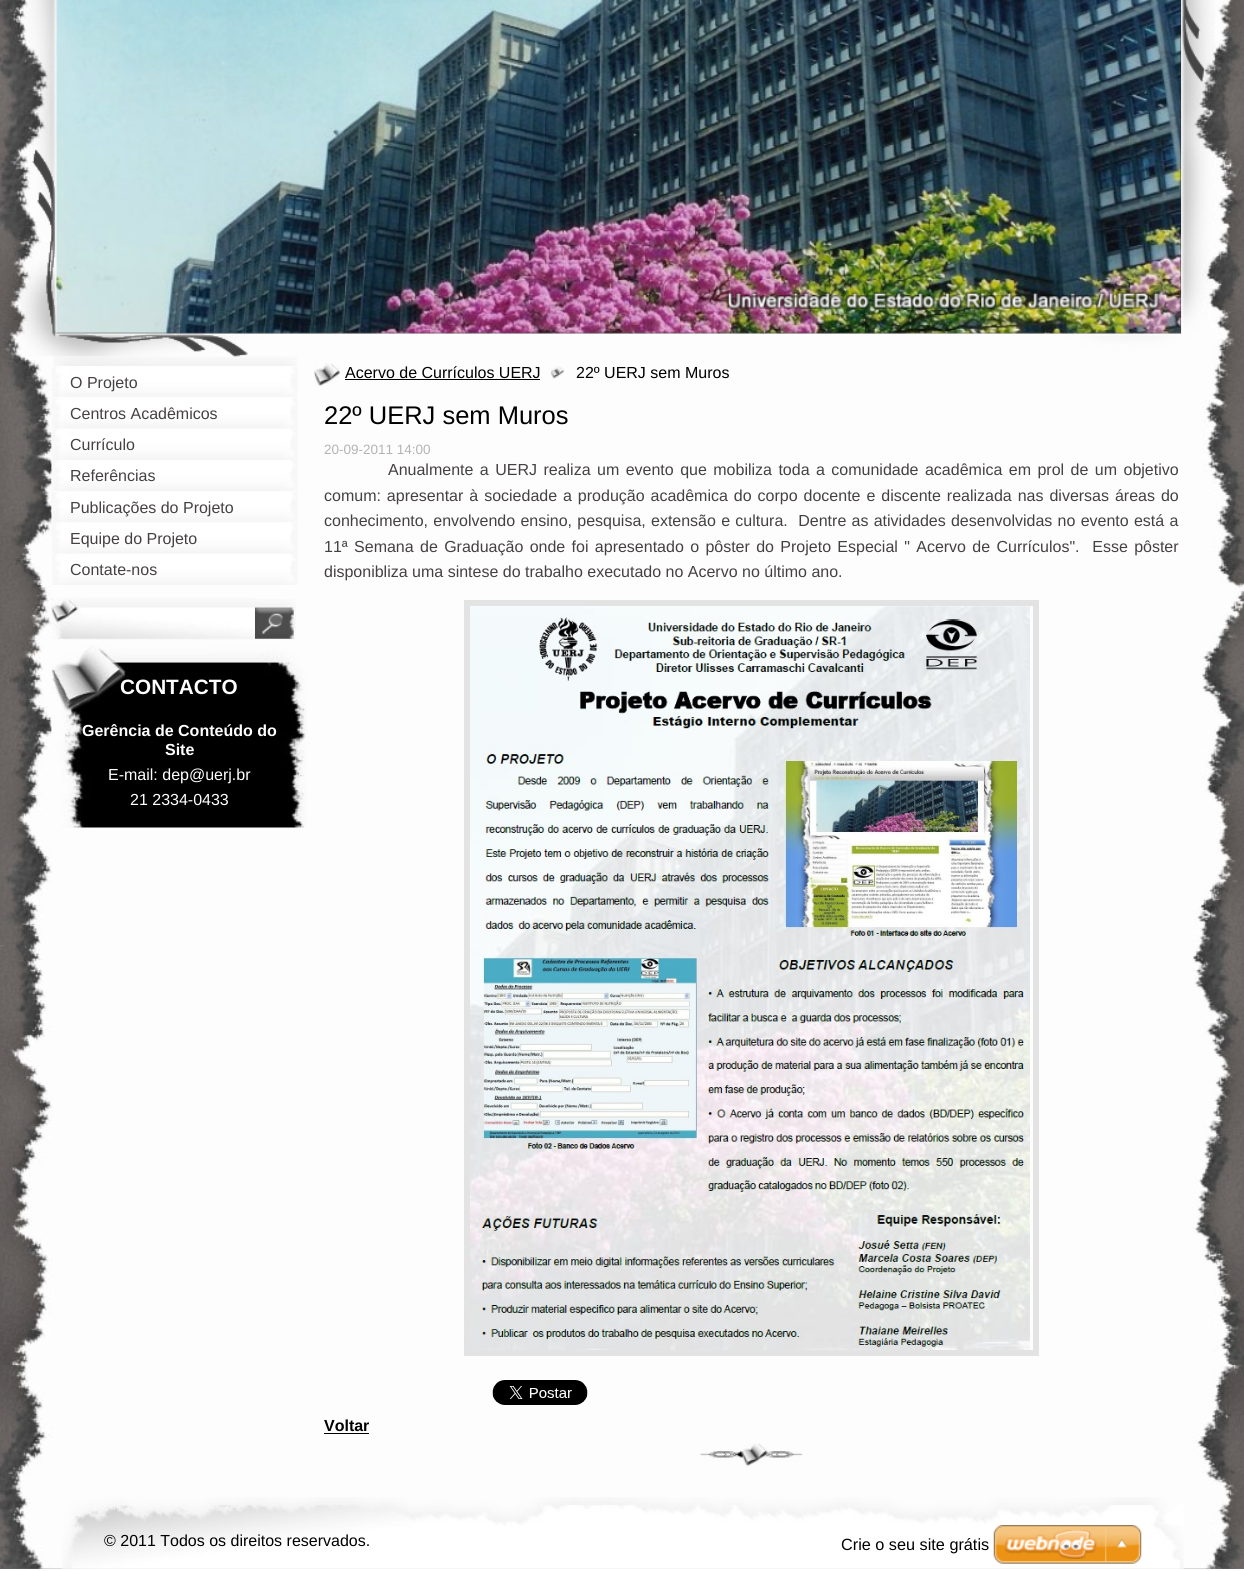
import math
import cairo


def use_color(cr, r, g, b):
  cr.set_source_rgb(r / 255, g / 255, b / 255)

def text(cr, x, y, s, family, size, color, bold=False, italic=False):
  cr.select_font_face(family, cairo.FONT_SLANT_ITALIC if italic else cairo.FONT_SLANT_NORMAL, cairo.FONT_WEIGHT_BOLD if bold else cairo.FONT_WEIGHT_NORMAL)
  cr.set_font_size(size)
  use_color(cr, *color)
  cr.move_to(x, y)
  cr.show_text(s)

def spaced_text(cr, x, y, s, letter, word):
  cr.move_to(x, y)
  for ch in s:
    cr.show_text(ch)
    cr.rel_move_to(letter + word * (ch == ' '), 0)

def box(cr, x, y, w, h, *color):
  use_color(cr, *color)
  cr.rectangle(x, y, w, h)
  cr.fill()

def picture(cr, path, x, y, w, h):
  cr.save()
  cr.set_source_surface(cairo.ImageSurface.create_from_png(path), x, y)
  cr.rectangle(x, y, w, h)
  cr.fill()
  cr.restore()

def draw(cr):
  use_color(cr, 255, 255, 255)
  cr.paint()
  picture(cr, "img_01.png", 0, 1568, 1244, 1)
  picture(cr, "img_02.png", 0, 0, 1244, 1569)
  picture(cr, "img_05.png", 53, 356, 244, 10)
  picture(cr, "img_03.png", 20, 0, 1195, 357)
  picture(cr, "img_04.png", 56, 0, 1126, 334)
  picture(cr, "img_06.png", 52, 367, 246, 30)
  picture(cr, "img_07.png", 51, 398, 247, 31)
  picture(cr, "img_08.png", 51, 429, 247, 31)
  picture(cr, "img_09.png", 51, 460, 247, 31)
  picture(cr, "img_10.png", 51, 492, 247, 30)
  picture(cr, "img_11.png", 51, 523, 247, 31)
  picture(cr, "img_12.png", 52, 554, 246, 31)
  picture(cr, "img_13.png", 51, 597, 204, 43)
  picture(cr, "img_14.png", 255, 599, 41, 41)
  picture(cr, "img_15.png", 51, 644, 256, 184)
  picture(cr, "img_16.png", 314, 363, 26, 24)
  box(cr, 345, 379, 195, 1, 0, 0, 0)
  picture(cr, "img_17.png", 551, 366, 14, 13)
  picture(cr, "img_18.png", 700, 1443, 103, 24)
  cr.rectangle(467, 603, 569, 750)
  use_color(cr, 227, 227, 227)
  cr.set_line_width(6)
  cr.stroke()
  picture(cr, "img_19.png", 470, 606, 561, 744)
  picture(cr, "img_20.png", 492, 1380, 96, 25)
  box(cr, 324, 1433, 45, 1, 0, 0, 0)
  picture(cr, "img_21.png", 62, 1497, 1122, 72)
  picture(cr, "img_22.png", 993, 1525, 149, 39)
  text(cr, 70, 388, "O Projeto", "Liberation Sans", 16, (69, 65, 67))
  text(cr, 70, 419, "Centros Acadêmicos", "Liberation Sans", 16, (69, 65, 67))
  text(cr, 70, 450, "Currículo", "Liberation Sans", 16, (69, 65, 67))
  text(cr, 70, 481, "Referências", "Liberation Sans", 16, (69, 65, 67))
  text(cr, 70, 513, "Publicações do Projeto", "Liberation Sans", 16, (69, 65, 67))
  text(cr, 70, 544, "Equipe do Projeto", "Liberation Sans", 16, (69, 65, 67))
  text(cr, 70, 575, "Contate-nos", "Liberation Sans", 16, (69, 65, 67))
  text(cr, 120, 694, "CONTACTO", "Liberation Sans", 20.75, (255, 255, 255), bold=True)
  text(cr, 82, 736, "Gerência de Conteúdo do", "Liberation Sans", 16, (255, 255, 255), bold=True)
  text(cr, 165, 755, "Site", "Liberation Sans", 16, (255, 255, 255), bold=True)
  text(cr, 108, 780, "E-mail: dep@uerj.br", "Liberation Sans", 16, (255, 255, 255))
  text(cr, 130, 805, "21 2334-0433", "Liberation Sans", 16, (255, 255, 255))
  text(cr, 345, 378, "Acervo de Currículos UERJ", "Liberation Sans", 16, (0, 0, 0))
  text(cr, 576, 378, "22º UERJ sem Muros", "Liberation Sans", 16, (0, 0, 0))
  text(cr, 324, 424, "22º UERJ sem Muros", "Liberation Sans", 25.5, (0, 0, 0))
  text(cr, 324, 454, "20-09-2011 14:00", "Liberation Sans", 13.5, (179, 179, 179))
  cr.set_font_size(16)
  use_color(cr, 69, 65, 67)
  spaced_text(cr, 388, 475, "Anualmente a UERJ realiza um evento que mobiliza toda a comunidade acadêmica em prol de um objetivo", 0, 2)
  spaced_text(cr, 324, 501, "comum: apresentar à sociedade a produção acadêmica do corpo docente e discente realizada nas diversas áreas do", 0, 1.5)
  spaced_text(cr, 324, 526, "conhecimento, envolvendo ensino, pesquisa, extensão e cultura.  Dentre as atividades desenvolvidas no evento está a", 0, 0.8)
  spaced_text(cr, 324, 552, "11ª Semana de Graduação onde foi apresentado o pôster do Projeto Especial \" Acervo de Currículos\".  Esse pôster", 0, 1.9)
  text(cr, 324, 577, "disponibliza uma sintese do trabalho executado no Acervo no último ano.", "Liberation Sans", 16, (69, 65, 67))
  text(cr, 324, 1431, "Voltar", "Liberation Sans", 16, (0, 0, 0), bold=True)
  text(cr, 104, 1546, "© 2011 Todos os direitos reservados.", "Liberation Sans", 16, (0, 0, 0))
  text(cr, 841, 1550, "Crie o seu site grátis", "Liberation Sans", 16.25, (0, 0, 0))


surface = cairo.ImageSurface(cairo.FORMAT_RGB24, 1244, 1571)
cr = cairo.Context(surface)
options = cairo.FontOptions()
options.set_hint_metrics(cairo.HINT_METRICS_OFF)
options.set_hint_style(cairo.HINT_STYLE_NONE)
cr.set_font_options(options)
cr.set_miter_limit(4)
draw(cr)
surface.write_to_png("out.png")
